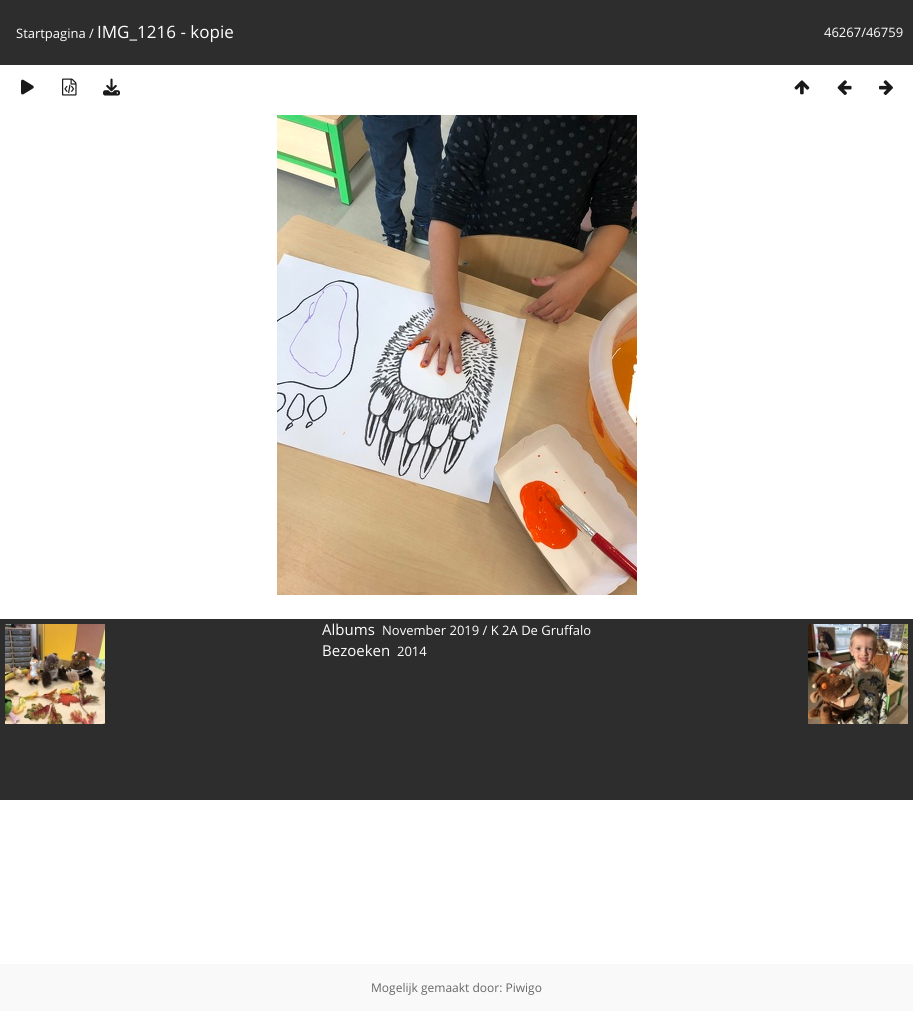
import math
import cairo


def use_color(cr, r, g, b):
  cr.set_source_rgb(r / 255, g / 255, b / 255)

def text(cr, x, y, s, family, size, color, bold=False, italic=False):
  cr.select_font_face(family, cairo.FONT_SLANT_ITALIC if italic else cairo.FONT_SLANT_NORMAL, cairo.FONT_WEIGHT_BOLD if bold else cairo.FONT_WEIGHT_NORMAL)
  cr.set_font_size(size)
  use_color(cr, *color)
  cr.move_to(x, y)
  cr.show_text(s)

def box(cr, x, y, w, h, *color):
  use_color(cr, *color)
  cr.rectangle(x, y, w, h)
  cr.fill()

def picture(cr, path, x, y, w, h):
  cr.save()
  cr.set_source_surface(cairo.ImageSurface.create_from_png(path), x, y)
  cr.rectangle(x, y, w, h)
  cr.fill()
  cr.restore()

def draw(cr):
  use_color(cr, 255, 255, 255)
  cr.paint()
  box(cr, 0, 0, 913, 65, 45, 45, 45)
  picture(cr, "img_01.png", 21, 79, 13, 16)
  picture(cr, "img_02.png", 62, 78, 15, 18)
  picture(cr, "img_03.png", 103, 78, 17, 18)
  picture(cr, "img_04.png", 794, 80, 16, 15)
  picture(cr, "img_05.png", 837, 80, 15, 15)
  picture(cr, "img_06.png", 879, 80, 14, 15)
  picture(cr, "img_07.png", 277, 115, 360, 480)
  box(cr, 0, 619, 913, 181, 45, 45, 45)
  picture(cr, "img_08.png", 5, 624, 100, 100)
  picture(cr, "img_09.png", 808, 624, 100, 100)
  box(cr, 0, 964, 913, 47, 249, 249, 249)
  text(cr, 16, 38, "Startpagina /", "Open Sans", 13, (255, 255, 255))
  text(cr, 97, 38, "IMG_1216 - kopie", "Open Sans", 17, (255, 255, 255))
  text(cr, 824, 37, "46267/46759", "Open Sans", 13, (255, 255, 255))
  text(cr, 322, 635, "Albums", "Open Sans", 15, (255, 255, 255))
  text(cr, 382, 635, "November 2019 / K 2A De Gruffalo", "Open Sans", 13, (255, 255, 255))
  text(cr, 322, 656, "Bezoeken", "Open Sans", 15, (255, 255, 255))
  text(cr, 397, 656, "2014", "Open Sans", 13, (255, 255, 255))
  text(cr, 371, 992, "Mogelijk gemaakt door: Piwigo", "Open Sans", 12, (102, 102, 102))


surface = cairo.ImageSurface(cairo.FORMAT_RGB24, 913, 1011)
cr = cairo.Context(surface)
options = cairo.FontOptions()
options.set_hint_metrics(cairo.HINT_METRICS_OFF)
options.set_hint_style(cairo.HINT_STYLE_NONE)
cr.set_font_options(options)
cr.set_miter_limit(4)
draw(cr)
surface.write_to_png("out.png")
